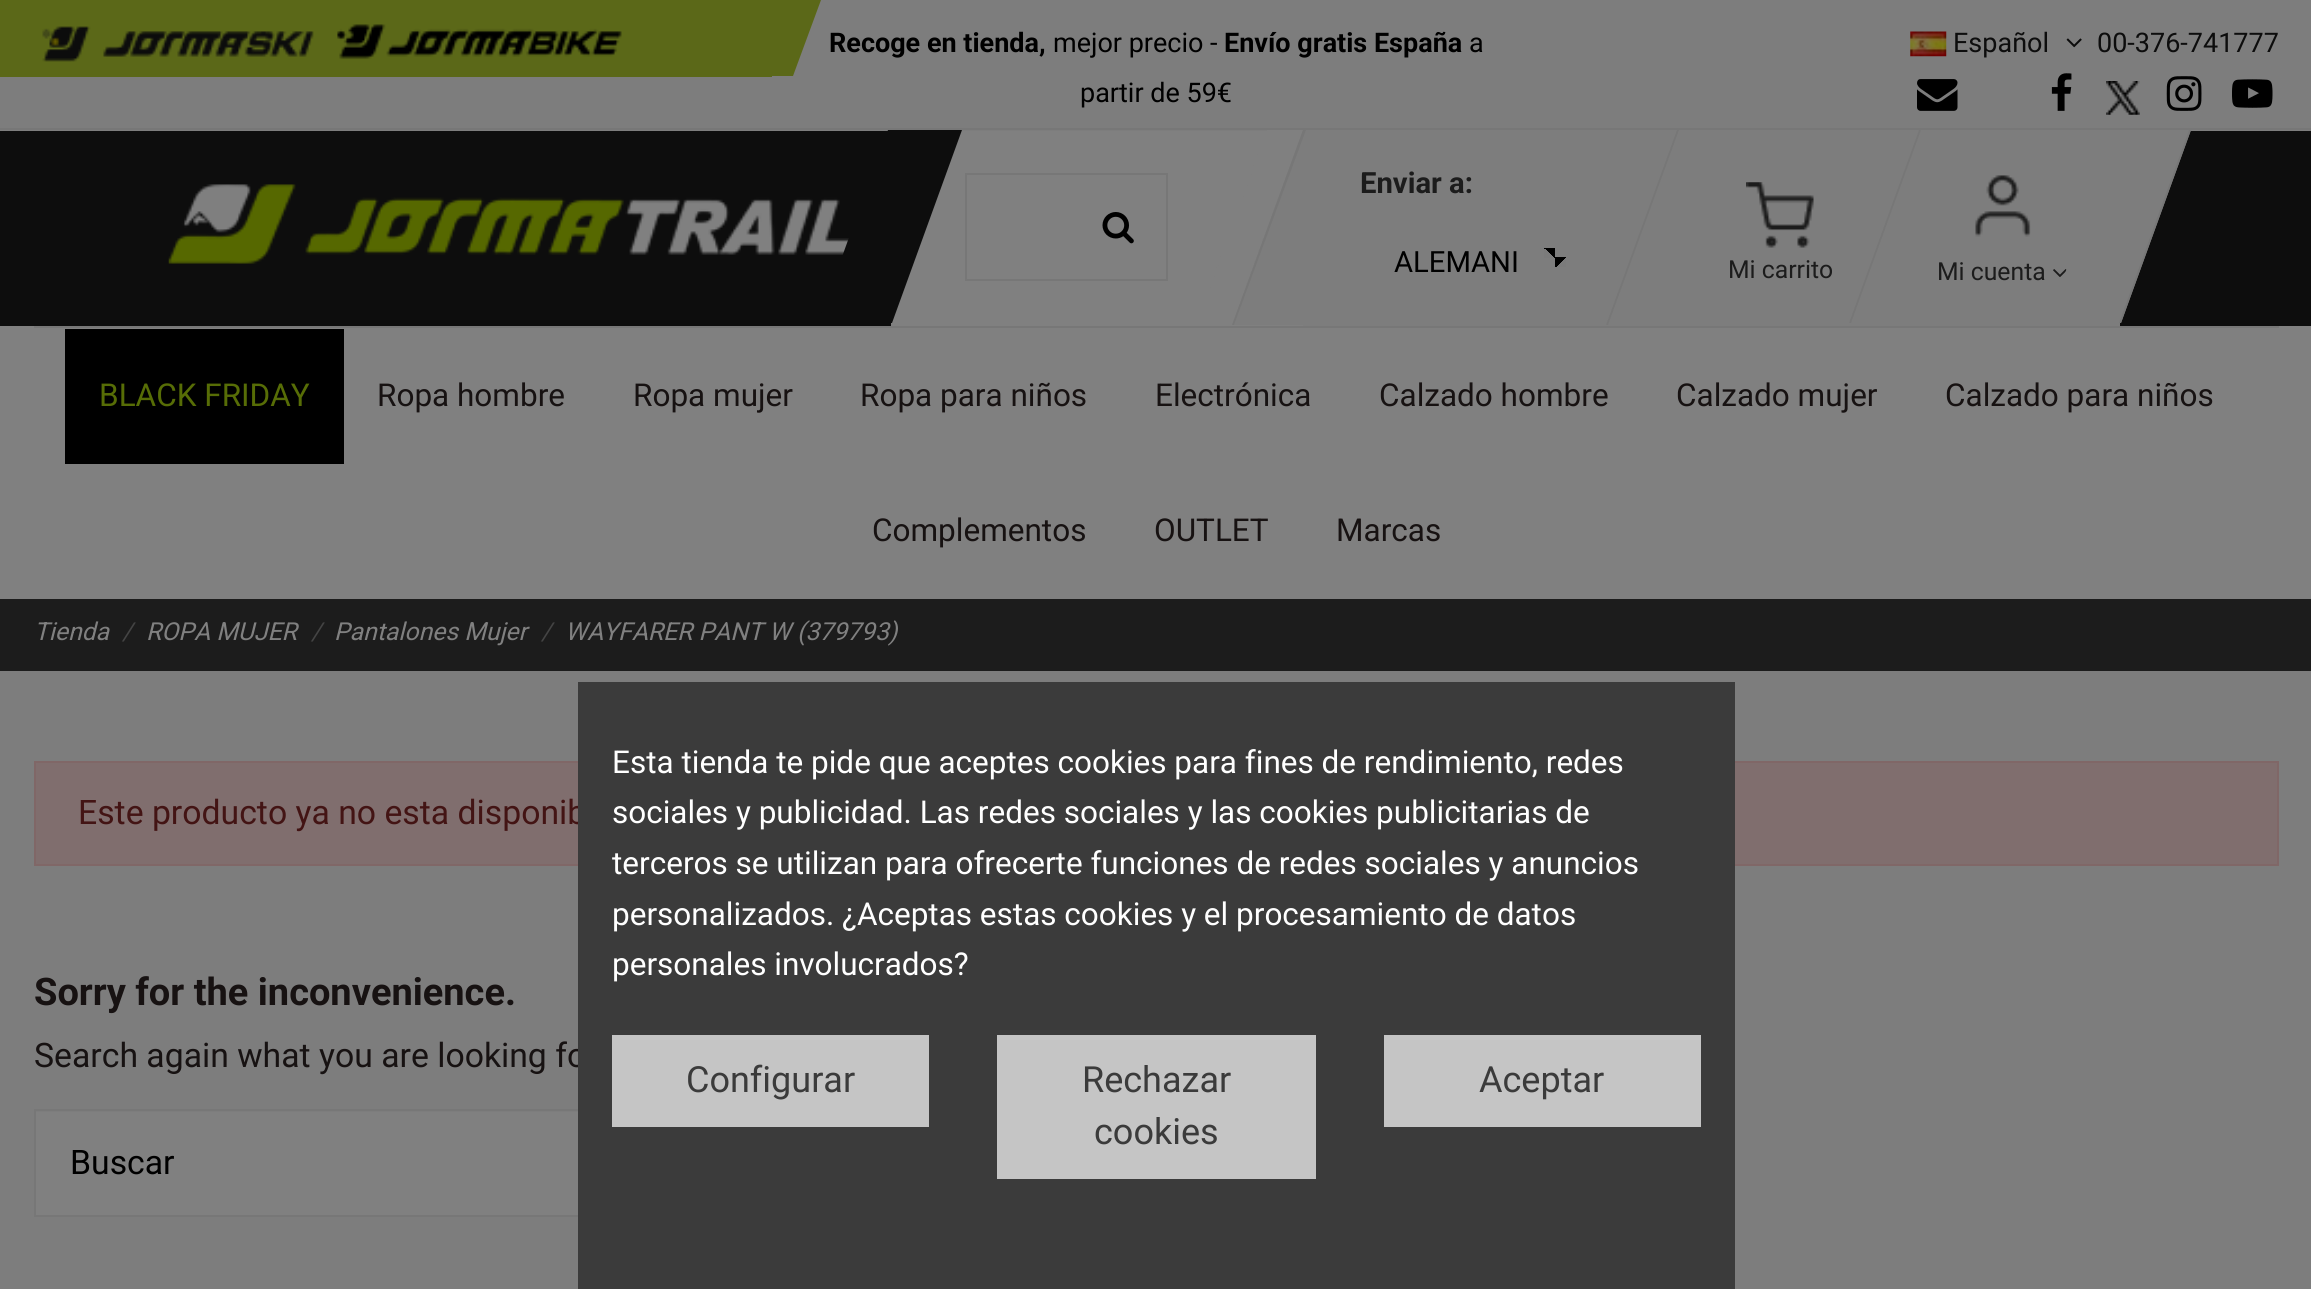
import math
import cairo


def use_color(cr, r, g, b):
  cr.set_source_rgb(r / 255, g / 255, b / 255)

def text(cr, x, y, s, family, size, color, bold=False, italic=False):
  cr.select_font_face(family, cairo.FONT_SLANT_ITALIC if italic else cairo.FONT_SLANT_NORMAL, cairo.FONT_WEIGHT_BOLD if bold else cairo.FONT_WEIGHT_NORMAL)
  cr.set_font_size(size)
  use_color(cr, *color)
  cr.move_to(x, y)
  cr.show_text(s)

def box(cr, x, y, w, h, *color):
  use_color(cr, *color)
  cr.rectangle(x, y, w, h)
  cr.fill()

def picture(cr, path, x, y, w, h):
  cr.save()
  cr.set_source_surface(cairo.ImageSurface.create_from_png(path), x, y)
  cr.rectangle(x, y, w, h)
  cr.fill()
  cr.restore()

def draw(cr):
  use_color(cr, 125, 125, 125)
  cr.paint()
  box(cr, 0, 326, 2311, 273, 128, 128, 128)
  box(cr, 0, 128, 2311, 2, 119, 119, 119)
  box(cr, 0, 0, 772, 77, 91, 104, 24)
  picture(cr, "img_01.png", 42, 26, 272, 36)
  picture(cr, "img_02.png", 337, 24, 285, 36)
  cr.new_path()
  cr.move_to(747, 0)
  cr.line_to(821, 0)
  cr.line_to(793, 76)
  cr.line_to(719, 76)
  cr.close_path()
  cr.fill()
  picture(cr, "img_03.png", 1910, 31, 37, 26)
  picture(cr, "img_04.png", 2066, 38, 16, 10)
  picture(cr, "img_05.png", 1917, 79, 41, 32)
  picture(cr, "img_06.png", 2051, 73, 21, 38)
  picture(cr, "img_07.png", 2106, 81, 34, 34)
  picture(cr, "img_08.png", 2166, 76, 36, 35)
  picture(cr, "img_09.png", 2232, 79, 41, 29)
  box(cr, 0, 131, 2311, 195, 13, 13, 13)
  picture(cr, "img_10.png", 168, 184, 681, 80)
  box(cr, 891, 131, 378, 195, 128, 128, 128)
  use_color(cr, 13, 13, 13)
  cr.new_path()
  cr.move_to(888, 130)
  cr.line_to(962, 130)
  cr.line_to(892, 323)
  cr.line_to(818, 323)
  cr.close_path()
  cr.fill()
  cr.rectangle(966, 174, 201, 106)
  use_color(cr, 119, 119, 119)
  cr.stroke()
  picture(cr, "img_11.png", 1102, 212, 32, 32)
  use_color(cr, 128, 128, 128)
  cr.new_path()
  cr.move_to(1267, 130)
  cr.line_to(1341, 130)
  cr.line_to(1271, 323)
  cr.line_to(1197, 323)
  cr.close_path()
  cr.fill()
  box(cr, 1269, 235, 34, 91, 128, 128, 128)
  box(cr, 1303, 131, 373, 195, 125, 125, 125)
  gradient = cairo.LinearGradient(1555, 257, 1566, 268)
  gradient.add_color_stop_rgba(0.5, 0, 0, 0, 1)
  gradient.add_color_stop_rgba(0.5, 0.482, 0.482, 0.482, 1)
  cr.set_source(gradient)
  cr.rectangle(1555, 257, 11, 10)
  cr.fill()
  gradient = cairo.LinearGradient(1544, 259, 1555, 248)
  gradient.add_color_stop_rgba(0.5, 0.482, 0.482, 0.482, 1)
  gradient.add_color_stop_rgba(0.5, 0, 0, 0, 1)
  cr.set_source(gradient)
  cr.rectangle(1544, 248, 11, 10)
  cr.fill()
  use_color(cr, 125, 125, 125)
  cr.new_path()
  cr.move_to(1674, 130)
  cr.line_to(1749, 130)
  cr.line_to(1678, 323)
  cr.line_to(1604, 323)
  cr.close_path()
  cr.fill()
  box(cr, 1676, 131, 243, 195, 125, 125, 125)
  use_color(cr, 119, 119, 119)
  cr.new_path()
  cr.move_to(1677, 130)
  cr.line_to(1679, 130)
  cr.line_to(1608, 325)
  cr.line_to(1606, 325)
  cr.close_path()
  cr.fill()
  picture(cr, "img_12.png", 1746, 182, 68, 66)
  use_color(cr, 125, 125, 125)
  cr.new_path()
  cr.move_to(1917, 130)
  cr.line_to(1991, 130)
  cr.line_to(1921, 323)
  cr.line_to(1846, 323)
  cr.close_path()
  cr.fill()
  box(cr, 1919, 131, 201, 195, 125, 125, 125)
  use_color(cr, 119, 119, 119)
  cr.new_path()
  cr.move_to(1919, 130)
  cr.line_to(1921, 130)
  cr.line_to(1851, 323)
  cr.line_to(1849, 323)
  cr.close_path()
  cr.fill()
  picture(cr, "img_13.png", 1975, 175, 56, 62)
  picture(cr, "img_14.png", 2053, 269, 14, 8)
  use_color(cr, 125, 125, 125)
  cr.new_path()
  cr.move_to(2117, 130)
  cr.line_to(2191, 130)
  cr.line_to(2121, 323)
  cr.line_to(2047, 323)
  cr.close_path()
  cr.fill()
  use_color(cr, 119, 119, 119)
  cr.new_path()
  cr.move_to(2189, 130)
  cr.line_to(2191, 130)
  cr.line_to(2121, 323)
  cr.line_to(2119, 323)
  cr.close_path()
  cr.fill()
  box(cr, 34, 326, 2245, 2, 119, 119, 119)
  box(cr, 65, 329, 279, 135, 0, 0, 0)
  box(cr, 0, 599, 2311, 72, 28, 28, 28)
  use_color(cr, 128, 110, 110)
  cr.rectangle(35, 762, 2243, 103)
  cr.fill_preserve()
  use_color(cr, 128, 103, 103)
  cr.stroke()
  box(cr, 36, 1112, 542, 103, 128, 128, 128)
  cr.rectangle(35, 1110, 1683, 106)
  use_color(cr, 119, 119, 119)
  cr.stroke()
  text(cr, 829, 52, "Recoge en tienda,", "Roboto", 27, (0, 0, 0), bold=True)
  text(cr, 1053, 52, "mejor precio -", "Roboto", 27, (0, 0, 0))
  text(cr, 1224, 52, "Envío gratis España", "Roboto", 27, (0, 0, 0), bold=True)
  text(cr, 1469, 52, "a", "Roboto", 27, (0, 0, 0))
  text(cr, 1080, 102, "partir de 59€", "Roboto", 27, (0, 0, 0))
  text(cr, 1953, 52, "Español", "Roboto", 27, (13, 13, 13))
  text(cr, 2097, 52, "00-376-741777", "Roboto", 27, (13, 13, 13))
  text(cr, 1360, 193, "Enviar a:", "Roboto", 29.25, (28, 28, 28), bold=True)
  use_color(cr, 125, 125, 125)
  cr.new_path()
  cr.move_to(1303, 130)
  cr.line_to(1378, 130)
  cr.line_to(1306, 325)
  cr.line_to(1232, 325)
  cr.close_path()
  cr.fill()
  use_color(cr, 119, 119, 119)
  cr.new_path()
  cr.move_to(1303, 130)
  cr.line_to(1306, 130)
  cr.line_to(1234, 325)
  cr.line_to(1232, 325)
  cr.close_path()
  cr.fill()
  text(cr, 1394, 272, "ALEMANI", "Roboto", 29.25, (0, 0, 0))
  text(cr, 1728, 278, "Mi carrito", "Roboto", 24.75, (28, 28, 28))
  text(cr, 1937, 280, "Mi cuenta", "Roboto", 24.75, (28, 28, 28))
  text(cr, 99, 406, "BLACK FRIDAY", "Roboto", 31.5, (87, 109, 6))
  text(cr, 377, 406, "Ropa hombre", "Roboto", 31.5, (23, 18, 18))
  text(cr, 633, 406, "Ropa mujer", "Roboto", 31.5, (23, 18, 18))
  text(cr, 860, 406, "Ropa para niños", "Roboto", 31.5, (23, 18, 18))
  text(cr, 1155, 406, "Electrónica", "Roboto", 31.5, (23, 18, 18))
  text(cr, 1379, 406, "Calzado hombre", "Roboto", 31.5, (23, 18, 18))
  text(cr, 1676, 406, "Calzado mujer", "Roboto", 31.5, (23, 18, 18))
  text(cr, 1945, 406, "Calzado para niños", "Roboto", 31.5, (23, 18, 18))
  text(cr, 872, 541, "Complementos", "Roboto", 31.5, (23, 18, 18))
  text(cr, 1154, 541, "OUTLET", "Roboto", 31.5, (23, 18, 18))
  text(cr, 1336, 541, "Marcas", "Roboto", 31.5, (23, 18, 18))
  text(cr, 34, 640, "Tienda", "Roboto", 24.75, (128, 128, 128), italic=True)
  text(cr, 122, 640, "/", "Roboto", 24.75, (68, 68, 68), italic=True)
  text(cr, 146, 640, "ROPA MUJER", "Roboto", 24.75, (128, 128, 128), italic=True)
  text(cr, 311, 640, "/", "Roboto", 24.75, (68, 68, 68), italic=True)
  text(cr, 334, 640, "Pantalones Mujer", "Roboto", 24.75, (128, 128, 128), italic=True)
  text(cr, 541, 640, "/", "Roboto", 24.75, (68, 68, 68), italic=True)
  text(cr, 565, 640, "WAYFARER PANT W (379793)", "Roboto", 24.75, (128, 128, 128), italic=True)
  text(cr, 78, 824, "Este producto ya no esta disponib", "Roboto", 33.75, (67, 20, 20))
  text(cr, 34, 1005, "Sorry for the inconvenience.", "Roboto", 38, (23, 18, 18), bold=True)
  text(cr, 34, 1067, "Search again what you are looking fo", "Roboto", 33.75, (23, 18, 18))
  text(cr, 70, 1174, "Buscar", "Roboto", 33.75, (0, 0, 0))
  box(cr, 578, 682, 1157, 607, 59, 59, 59)
  text(cr, 612, 773, "Esta tienda te pide que aceptes cookies para fines de rendimiento, redes", "Roboto", 31.5, (255, 255, 255))
  text(cr, 612, 823, "sociales y publicidad. Las redes sociales y las cookies publicitarias de", "Roboto", 31.5, (255, 255, 255))
  text(cr, 612, 874, "terceros se utilizan para ofrecerte funciones de redes sociales y anuncios", "Roboto", 31.5, (255, 255, 255))
  text(cr, 612, 925, "personalizados. ¿Aceptas estas cookies y el procesamiento de datos", "Roboto", 31.5, (255, 255, 255))
  text(cr, 612, 975, "personales involucrados?", "Roboto", 31.5, (255, 255, 255))
  box(cr, 612, 1035, 317, 92, 197, 197, 197)
  text(cr, 686, 1092, "Configurar", "Roboto", 36, (59, 59, 59))
  box(cr, 997, 1035, 319, 144, 197, 197, 197)
  text(cr, 1082, 1092, "Rechazar", "Roboto", 36, (59, 59, 59))
  text(cr, 1094, 1144, "cookies", "Roboto", 36, (59, 59, 59))
  box(cr, 1384, 1035, 317, 92, 197, 197, 197)
  text(cr, 1479, 1092, "Aceptar", "Roboto", 36, (59, 59, 59))


surface = cairo.ImageSurface(cairo.FORMAT_RGB24, 2311, 1289)
cr = cairo.Context(surface)
options = cairo.FontOptions()
options.set_hint_metrics(cairo.HINT_METRICS_OFF)
options.set_hint_style(cairo.HINT_STYLE_NONE)
cr.set_font_options(options)
cr.set_miter_limit(4)
draw(cr)
surface.write_to_png("out.png")
